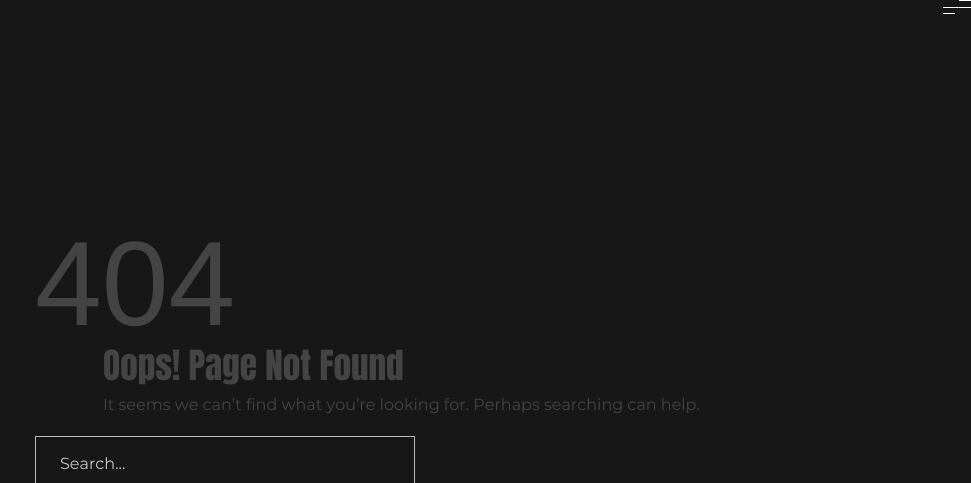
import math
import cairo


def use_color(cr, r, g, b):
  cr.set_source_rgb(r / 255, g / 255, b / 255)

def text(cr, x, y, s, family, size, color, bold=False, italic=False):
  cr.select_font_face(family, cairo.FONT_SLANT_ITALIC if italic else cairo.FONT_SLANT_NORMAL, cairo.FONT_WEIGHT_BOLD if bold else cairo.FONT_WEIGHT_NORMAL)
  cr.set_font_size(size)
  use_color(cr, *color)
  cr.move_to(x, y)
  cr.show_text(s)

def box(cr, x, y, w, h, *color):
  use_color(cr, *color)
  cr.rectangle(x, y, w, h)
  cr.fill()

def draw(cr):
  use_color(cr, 23, 23, 23)
  cr.paint()
  box(cr, 959, 0, 12, 1, 255, 255, 255)
  box(cr, 943, 7, 28, 1, 255, 255, 255)
  box(cr, 943, 13, 12, 1, 255, 255, 255)
  cr.rectangle(35.5, 436.5, 379, 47)
  use_color(cr, 187, 187, 187)
  cr.set_line_width(1)
  cr.stroke()
  text(cr, 35, 325, "404", "Liberation Sans", 120, (68, 68, 68))
  text(cr, 103, 380, "Oops! Page Not Found", "Anton", 35.25, (68, 68, 68))
  text(cr, 103, 410, "It seems we can’t find what you’re looking for. Perhaps searching can help.", "Montserrat", 16, (68, 68, 68))
  text(cr, 60, 469, "Search...", "Montserrat", 16, (197, 197, 197))


surface = cairo.ImageSurface(cairo.FORMAT_RGB24, 971, 483)
cr = cairo.Context(surface)
options = cairo.FontOptions()
options.set_hint_metrics(cairo.HINT_METRICS_OFF)
options.set_hint_style(cairo.HINT_STYLE_NONE)
cr.set_font_options(options)
cr.set_miter_limit(4)
draw(cr)
surface.write_to_png("out.png")
